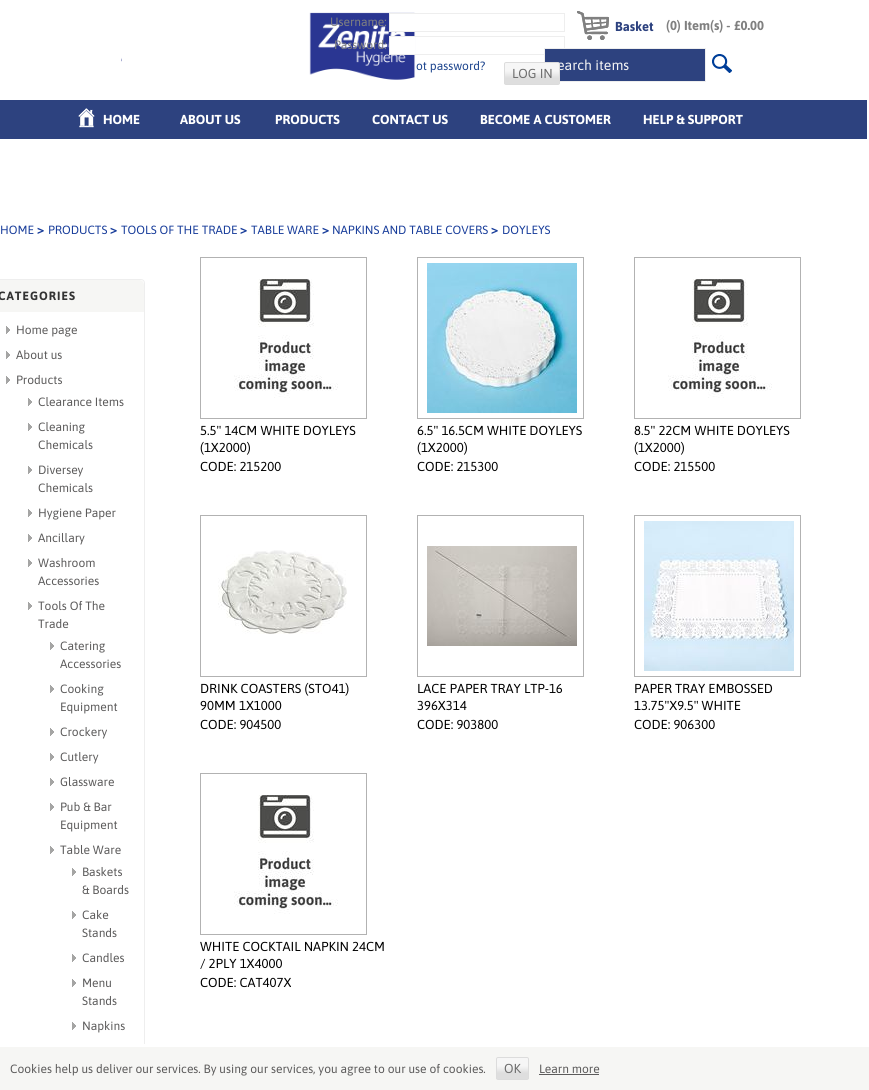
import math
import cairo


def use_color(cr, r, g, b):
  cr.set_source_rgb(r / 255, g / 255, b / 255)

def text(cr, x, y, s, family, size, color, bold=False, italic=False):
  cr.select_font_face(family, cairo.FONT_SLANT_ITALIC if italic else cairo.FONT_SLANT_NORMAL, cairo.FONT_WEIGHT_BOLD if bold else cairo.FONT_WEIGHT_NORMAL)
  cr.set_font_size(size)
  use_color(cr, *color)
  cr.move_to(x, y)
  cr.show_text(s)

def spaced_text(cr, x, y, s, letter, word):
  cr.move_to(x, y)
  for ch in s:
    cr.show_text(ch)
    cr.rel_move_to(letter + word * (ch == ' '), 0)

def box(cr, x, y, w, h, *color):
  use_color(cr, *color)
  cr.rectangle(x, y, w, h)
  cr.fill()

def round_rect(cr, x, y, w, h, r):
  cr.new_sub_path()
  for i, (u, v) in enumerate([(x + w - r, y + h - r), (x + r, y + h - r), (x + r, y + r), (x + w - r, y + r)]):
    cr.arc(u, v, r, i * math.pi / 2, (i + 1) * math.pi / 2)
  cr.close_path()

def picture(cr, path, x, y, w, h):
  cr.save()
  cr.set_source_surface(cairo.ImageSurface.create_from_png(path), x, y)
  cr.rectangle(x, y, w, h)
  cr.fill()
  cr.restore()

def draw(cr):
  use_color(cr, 255, 255, 255)
  cr.paint()
  picture(cr, "img_01.png", 121, 12, 305, 68)
  box(cr, 390, 14, 36, 17, 255, 255, 255)
  cr.rectangle(389.5, 13.5, 175, 18)
  use_color(cr, 238, 238, 238)
  cr.set_line_width(1)
  cr.stroke()
  box(cr, 390, 37, 25, 17, 255, 255, 255)
  cr.rectangle(389.5, 36.5, 175, 18)
  use_color(cr, 238, 238, 238)
  cr.stroke()
  picture(cr, "img_02.png", 577, 11, 32, 29)
  use_color(cr, 45, 66, 127)
  cr.rectangle(544.5, 48.5, 161, 33)
  cr.fill_preserve()
  use_color(cr, 238, 238, 238)
  cr.stroke()
  picture(cr, "img_03.png", 712, 54, 20, 19)
  box(cr, 0, 100, 867, 39, 45, 66, 127)
  picture(cr, "img_04.png", 78, 108, 17, 20)
  round_rect(cr, -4.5, 279.5, 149, 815, 3.5)
  use_color(cr, 238, 238, 238)
  cr.stroke()
  use_color(cr, 246, 246, 244)
  cr.new_path()
  cr.move_to(0, 280)
  cr.line_to(139, 280)
  cr.curve_to(142, 280, 144, 282, 144, 285)
  cr.line_to(144, 312)
  cr.line_to(-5, 312)
  cr.line_to(-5, 285)
  cr.curve_to(-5, 282, -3, 280, 0, 280)
  cr.close_path()
  cr.fill()
  picture(cr, "img_05.png", 6, 326, 4, 8)
  picture(cr, "img_05.png", 6, 351, 4, 8)
  picture(cr, "img_05.png", 6, 376, 4, 8)
  picture(cr, "img_05.png", 28, 398, 4, 8)
  picture(cr, "img_05.png", 28, 423, 4, 8)
  picture(cr, "img_05.png", 28, 466, 4, 8)
  picture(cr, "img_05.png", 28, 509, 4, 8)
  picture(cr, "img_05.png", 28, 534, 4, 8)
  picture(cr, "img_05.png", 28, 559, 4, 8)
  picture(cr, "img_05.png", 28, 602, 4, 8)
  picture(cr, "img_05.png", 50, 642, 4, 8)
  picture(cr, "img_05.png", 50, 685, 4, 8)
  picture(cr, "img_05.png", 50, 728, 4, 8)
  picture(cr, "img_05.png", 50, 753, 4, 8)
  picture(cr, "img_05.png", 50, 778, 4, 8)
  picture(cr, "img_05.png", 50, 803, 4, 8)
  picture(cr, "img_05.png", 50, 846, 4, 8)
  picture(cr, "img_05.png", 72, 868, 4, 8)
  picture(cr, "img_05.png", 72, 911, 4, 8)
  picture(cr, "img_05.png", 72, 954, 4, 8)
  picture(cr, "img_05.png", 72, 979, 4, 8)
  picture(cr, "img_05.png", 72, 1022, 4, 8)
  cr.rectangle(200.5, 257.5, 166, 161)
  use_color(cr, 178, 178, 178)
  cr.stroke()
  picture(cr, "img_06.png", 234, 279, 104, 119)
  cr.rectangle(417.5, 257.5, 166, 161)
  cr.stroke()
  picture(cr, "img_07.png", 427, 263, 150, 150)
  cr.rectangle(634.5, 257.5, 166, 161)
  cr.stroke()
  picture(cr, "img_06.png", 668, 279, 104, 119)
  cr.rectangle(200.5, 515.5, 166, 161)
  cr.stroke()
  picture(cr, "img_08.png", 218, 550, 129, 84)
  cr.rectangle(417.5, 515.5, 166, 161)
  cr.stroke()
  picture(cr, "img_09.png", 427, 546, 150, 100)
  cr.rectangle(634.5, 515.5, 166, 161)
  cr.stroke()
  picture(cr, "img_10.png", 644, 521, 150, 150)
  cr.rectangle(200.5, 773.5, 166, 161)
  cr.stroke()
  picture(cr, "img_06.png", 234, 795, 104, 119)
  box(cr, 0, 1047, 869, 43, 246, 246, 244)
  box(cr, 144, 1044, 1, 3, 255, 255, 255)
  cr.save()
  round_rect(cr, 496, 1057, 33, 23, 2)
  cr.clip()
  gradient = cairo.LinearGradient(497, 1066, 497, 1073)
  gradient.add_color_stop_rgba(0, 0.965, 0.965, 0.965, 1)
  gradient.add_color_stop_rgba(1, 0.871, 0.871, 0.871, 1)
  cr.set_source(gradient)
  cr.rectangle(496, 1058, 33, 21)
  cr.fill()
  cr.restore()
  round_rect(cr, 496.5, 1057.5, 32, 22, 1.5)
  use_color(cr, 220, 220, 220)
  cr.stroke()
  box(cr, 539, 1074, 60, 1, 92, 91, 91)
  text(cr, 330, 26, "Username:", "Asap", 12, (128, 128, 128))
  text(cr, 334, 49, "Password:", "Asap", 12, (128, 128, 128))
  text(cr, 416, 70, "ot password?", "Asap", 12, (28, 68, 141))
  text(cr, 615, 31, "Basket", "Asap", 13, (45, 66, 127), bold=True)
  text(cr, 666, 30, "(0) Item(s) - £0.00", "Asap", 13, (128, 128, 128), bold=True)
  text(cr, 557, 70, "earch items", "Asap", 14, (245, 245, 245))
  cr.save()
  round_rect(cr, 504, 62, 56, 23, 2)
  cr.clip()
  gradient = cairo.LinearGradient(505, 71, 505, 78)
  gradient.add_color_stop_rgba(0, 0.965, 0.965, 0.965, 1)
  gradient.add_color_stop_rgba(1, 0.871, 0.871, 0.871, 1)
  cr.set_source(gradient)
  cr.rectangle(504, 63, 56, 21)
  cr.fill()
  cr.restore()
  round_rect(cr, 504.5, 62.5, 55, 22, 1.5)
  use_color(cr, 220, 220, 220)
  cr.stroke()
  text(cr, 512, 78, "LOG IN", "Asap", 13, (110, 110, 110))
  text(cr, 103, 124, "HOME", "Asap", 13, (255, 255, 255), bold=True)
  text(cr, 180, 124, "ABOUT US", "Asap", 13, (255, 255, 255), bold=True)
  text(cr, 275, 124, "PRODUCTS", "Asap", 13, (255, 255, 255), bold=True)
  text(cr, 372, 124, "CONTACT US", "Asap", 13, (255, 255, 255), bold=True)
  text(cr, 480, 124, "BECOME A CUSTOMER", "Asap", 13, (255, 255, 255), bold=True)
  text(cr, 643, 124, "HELP & SUPPORT", "Asap", 13, (255, 255, 255), bold=True)
  text(cr, 0, 234, "HOME", "Asap", 11.9, (23, 60, 154))
  text(cr, 37, 234, ">", "Asap", 13, (23, 60, 154), bold=True)
  text(cr, 48, 234, "PRODUCTS", "Asap", 11.9, (23, 60, 154))
  text(cr, 110, 234, ">", "Asap", 13, (23, 60, 154), bold=True)
  text(cr, 121, 234, "TOOLS OF THE TRADE", "Asap", 11.9, (23, 60, 154))
  text(cr, 240, 234, ">", "Asap", 13, (23, 60, 154), bold=True)
  text(cr, 251, 234, "TABLE WARE", "Asap", 11.9, (23, 60, 154))
  text(cr, 322, 234, ">", "Asap", 13, (23, 60, 154), bold=True)
  text(cr, 332, 234, "NAPKINS AND TABLE COVERS", "Asap", 11.9, (23, 60, 154))
  text(cr, 491, 234, ">", "Asap", 13, (23, 60, 154), bold=True)
  text(cr, 502, 234, "DOYLEYS", "Asap", 11.9, (23, 60, 154))
  cr.select_font_face("Asap", cairo.FONT_SLANT_NORMAL, cairo.FONT_WEIGHT_BOLD)
  cr.set_font_size(12)
  use_color(cr, 51, 51, 51)
  spaced_text(cr, -2, 300, "CATEGORIES", 1, 0)
  text(cr, 16, 334, "Home page", "Asap", 12, (92, 91, 91))
  text(cr, 16, 359, "About us", "Asap", 12, (92, 91, 91))
  text(cr, 16, 384, "Products", "Asap", 12, (92, 91, 91))
  text(cr, 38, 406, "Clearance Items", "Asap", 12, (92, 91, 91))
  text(cr, 38, 431, "Cleaning", "Asap", 12, (92, 91, 91))
  text(cr, 38, 449, "Chemicals", "Asap", 12, (92, 91, 91))
  text(cr, 38, 474, "Diversey", "Asap", 12, (92, 91, 91))
  text(cr, 38, 492, "Chemicals", "Asap", 12, (92, 91, 91))
  text(cr, 38, 517, "Hygiene Paper", "Asap", 12, (92, 91, 91))
  text(cr, 38, 542, "Ancillary", "Asap", 12, (92, 91, 91))
  text(cr, 38, 567, "Washroom", "Asap", 12, (92, 91, 91))
  text(cr, 38, 585, "Accessories", "Asap", 12, (92, 91, 91))
  text(cr, 38, 610, "Tools Of The", "Asap", 12, (92, 91, 91))
  text(cr, 38, 628, "Trade", "Asap", 12, (92, 91, 91))
  text(cr, 60, 650, "Catering", "Asap", 12, (92, 91, 91))
  text(cr, 60, 668, "Accessories", "Asap", 12, (92, 91, 91))
  text(cr, 60, 693, "Cooking", "Asap", 12, (92, 91, 91))
  text(cr, 60, 711, "Equipment", "Asap", 12, (92, 91, 91))
  text(cr, 60, 736, "Crockery", "Asap", 12, (92, 91, 91))
  text(cr, 60, 761, "Cutlery", "Asap", 12, (92, 91, 91))
  text(cr, 60, 786, "Glassware", "Asap", 12, (92, 91, 91))
  text(cr, 60, 811, "Pub & Bar", "Asap", 12, (92, 91, 91))
  text(cr, 60, 829, "Equipment", "Asap", 12, (92, 91, 91))
  text(cr, 60, 854, "Table Ware", "Asap", 12, (92, 91, 91))
  text(cr, 82, 876, "Baskets", "Asap", 12, (92, 91, 91))
  text(cr, 82, 894, "& Boards", "Asap", 12, (92, 91, 91))
  text(cr, 82, 919, "Cake", "Asap", 12, (92, 91, 91))
  text(cr, 82, 937, "Stands", "Asap", 12, (92, 91, 91))
  text(cr, 82, 962, "Candles", "Asap", 12, (92, 91, 91))
  text(cr, 82, 987, "Menu", "Asap", 12, (92, 91, 91))
  text(cr, 82, 1005, "Stands", "Asap", 12, (92, 91, 91))
  text(cr, 82, 1030, "Napkins", "Asap", 12, (92, 91, 91))
  text(cr, 200, 435, "5.5\" 14CM WHITE DOYLEYS", "Asap", 13, (0, 0, 0))
  text(cr, 200, 452, "(1X2000)", "Asap", 13, (0, 0, 0))
  text(cr, 200, 471, "CODE: 215200", "Asap", 13, (0, 0, 0))
  text(cr, 417, 435, "6.5\" 16.5CM WHITE DOYLEYS", "Asap", 13, (0, 0, 0))
  text(cr, 417, 452, "(1X2000)", "Asap", 13, (0, 0, 0))
  text(cr, 417, 471, "CODE: 215300", "Asap", 13, (0, 0, 0))
  text(cr, 634, 435, "8.5\" 22CM WHITE DOYLEYS", "Asap", 13, (0, 0, 0))
  text(cr, 634, 452, "(1X2000)", "Asap", 13, (0, 0, 0))
  text(cr, 634, 471, "CODE: 215500", "Asap", 13, (0, 0, 0))
  text(cr, 200, 693, "DRINK COASTERS (STO41)", "Asap", 13, (0, 0, 0))
  text(cr, 200, 710, "90MM 1X1000", "Asap", 13, (0, 0, 0))
  text(cr, 200, 729, "CODE: 904500", "Asap", 13, (0, 0, 0))
  text(cr, 417, 693, "LACE PAPER TRAY LTP-16", "Asap", 13, (0, 0, 0))
  text(cr, 417, 710, "396X314", "Asap", 13, (0, 0, 0))
  text(cr, 417, 729, "CODE: 903800", "Asap", 13, (0, 0, 0))
  text(cr, 634, 693, "PAPER TRAY EMBOSSED", "Asap", 13, (0, 0, 0))
  text(cr, 634, 710, "13.75\"X9.5\" WHITE", "Asap", 13, (0, 0, 0))
  text(cr, 634, 729, "CODE: 906300", "Asap", 13, (0, 0, 0))
  text(cr, 200, 951, "WHITE COCKTAIL NAPKIN 24CM", "Asap", 13, (0, 0, 0))
  text(cr, 200, 968, "/ 2PLY 1X4000", "Asap", 13, (0, 0, 0))
  text(cr, 200, 987, "CODE: CAT407X", "Asap", 13, (0, 0, 0))
  text(cr, 10, 1073, "Cookies help us deliver our services. By using our services, you agree to our use of cookies.", "Asap", 12, (92, 91, 91))
  text(cr, 504, 1073, "OK", "Asap", 13, (110, 110, 110))
  text(cr, 539, 1073, "Learn more", "Asap", 12, (92, 91, 91))


surface = cairo.ImageSurface(cairo.FORMAT_RGB24, 869, 1090)
cr = cairo.Context(surface)
options = cairo.FontOptions()
options.set_hint_metrics(cairo.HINT_METRICS_OFF)
options.set_hint_style(cairo.HINT_STYLE_NONE)
cr.set_font_options(options)
cr.set_miter_limit(4)
draw(cr)
surface.write_to_png("out.png")
